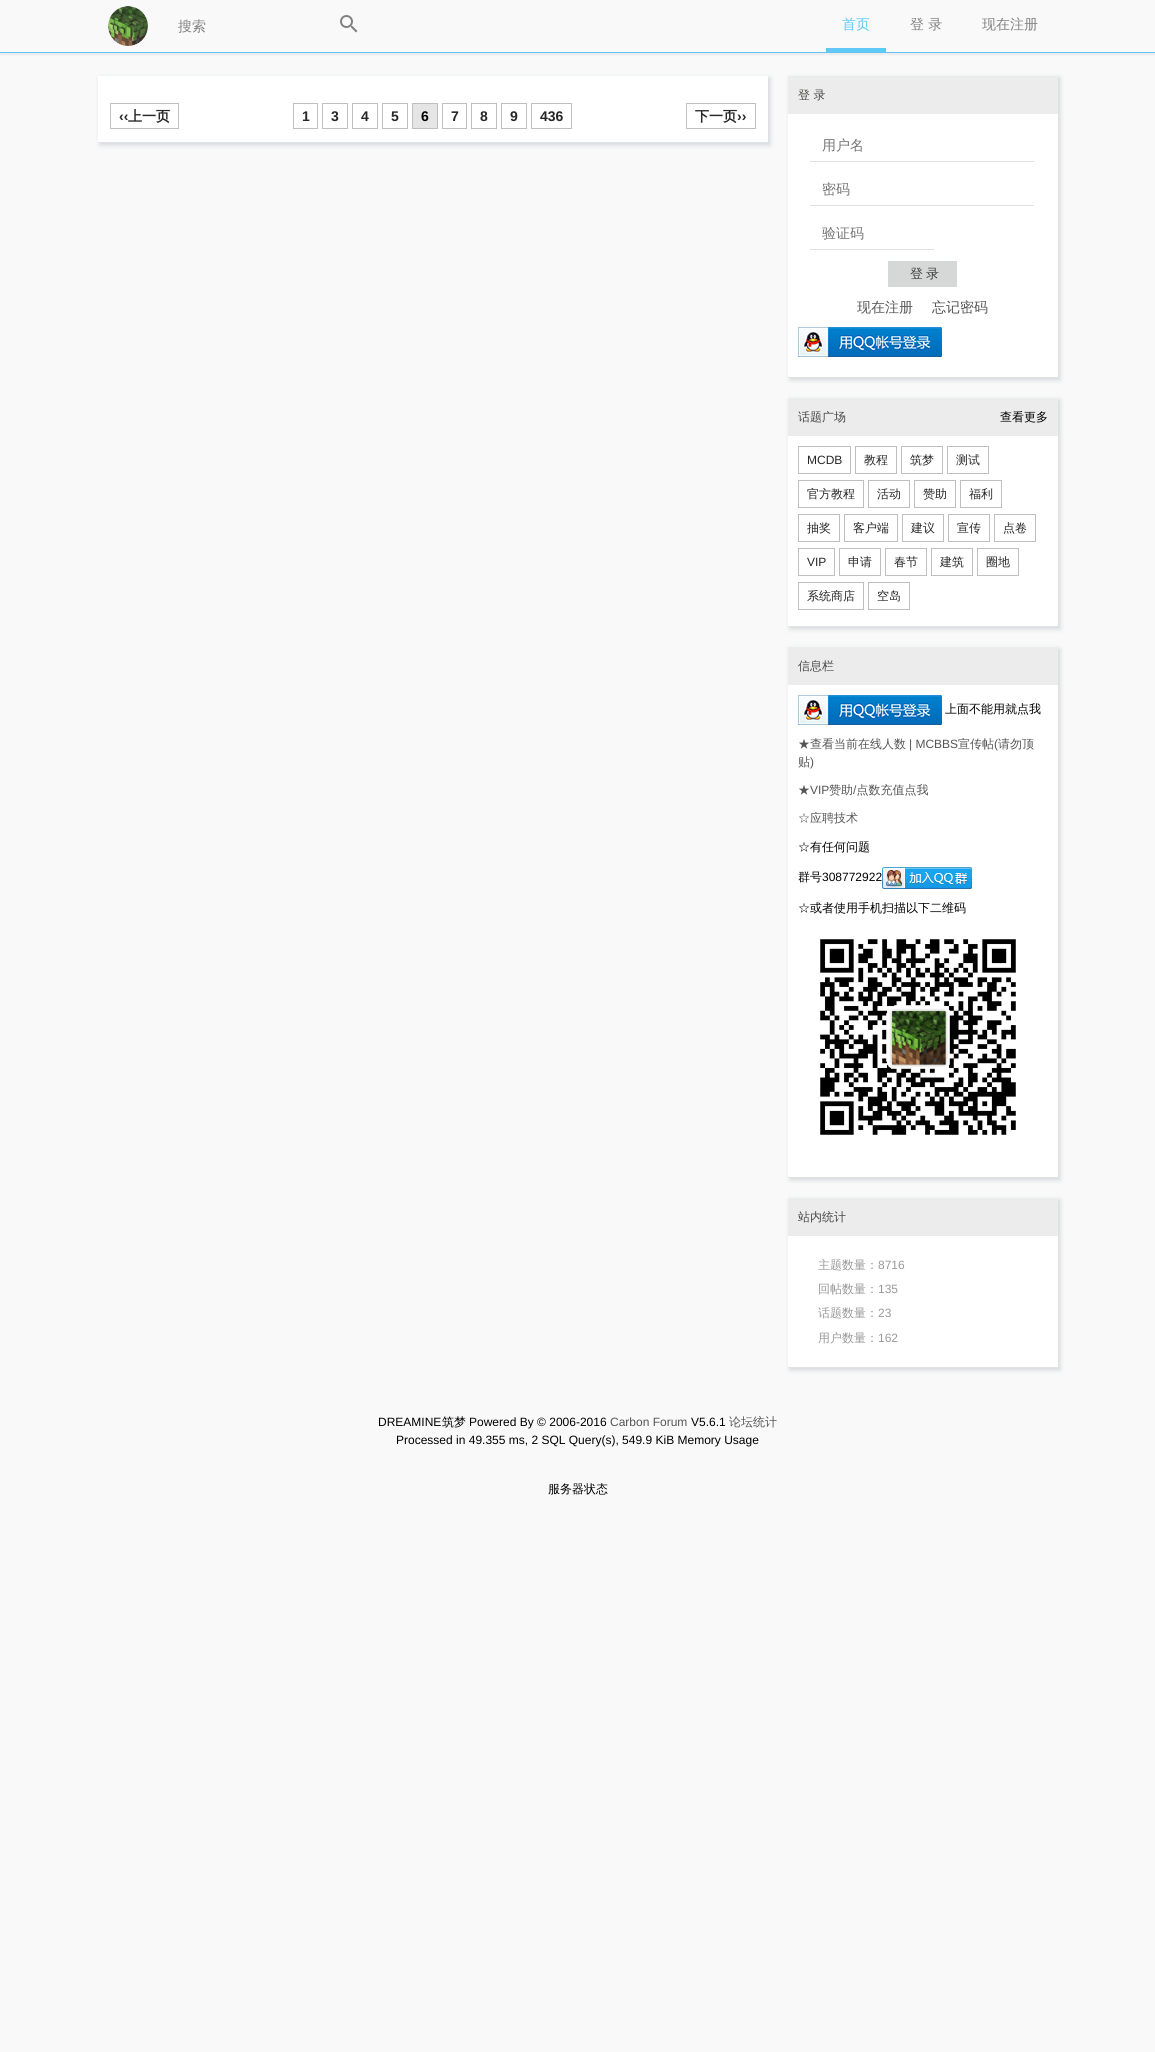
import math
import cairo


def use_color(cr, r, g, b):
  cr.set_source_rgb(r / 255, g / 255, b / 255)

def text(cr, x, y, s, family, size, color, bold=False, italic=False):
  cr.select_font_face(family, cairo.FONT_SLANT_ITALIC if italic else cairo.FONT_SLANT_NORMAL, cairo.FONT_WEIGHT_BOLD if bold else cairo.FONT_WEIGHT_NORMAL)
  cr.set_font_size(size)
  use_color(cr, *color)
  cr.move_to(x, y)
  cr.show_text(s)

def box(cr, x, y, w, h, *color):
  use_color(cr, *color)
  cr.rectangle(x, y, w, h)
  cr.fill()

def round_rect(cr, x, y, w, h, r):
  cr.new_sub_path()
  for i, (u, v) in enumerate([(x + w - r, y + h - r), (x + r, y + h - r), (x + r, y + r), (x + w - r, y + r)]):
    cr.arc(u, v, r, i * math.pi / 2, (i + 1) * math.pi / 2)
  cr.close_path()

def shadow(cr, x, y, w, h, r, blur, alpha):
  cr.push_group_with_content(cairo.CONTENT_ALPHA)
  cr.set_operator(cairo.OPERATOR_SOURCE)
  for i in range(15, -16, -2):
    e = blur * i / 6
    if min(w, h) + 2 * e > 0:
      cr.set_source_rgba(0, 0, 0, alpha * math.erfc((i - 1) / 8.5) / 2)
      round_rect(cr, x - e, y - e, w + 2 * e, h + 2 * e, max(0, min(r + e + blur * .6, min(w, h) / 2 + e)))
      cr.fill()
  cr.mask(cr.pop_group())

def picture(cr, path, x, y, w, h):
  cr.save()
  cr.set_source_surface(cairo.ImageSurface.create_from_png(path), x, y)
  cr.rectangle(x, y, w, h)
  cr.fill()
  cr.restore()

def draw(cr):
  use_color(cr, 249, 249, 249)
  cr.paint()
  cr.save()
  cr.rectangle(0, 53, 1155, 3)
  cr.clip()
  use_color(cr, 25, 25, 25)
  shadow(cr, 0, 2, 1155, 53, 0, 1, 0.07)
  cr.restore()
  box(cr, 0, 52, 1155, 1, 96, 200, 247)
  picture(cr, "img_01.png", 108, 6, 40, 40)
  picture(cr, "img_02.png", 340, 15, 18, 18)
  box(cr, 826, 48, 60, 4, 96, 200, 247)
  use_color(cr, 211, 214, 218)
  shadow(cr, 100, 78, 670, 67, 0, 2.5, 1)
  box(cr, 98, 76, 670, 66, 255, 255, 255)
  box(cr, 98, 142, 670, 1, 226, 226, 233)
  cr.rectangle(110.5, 103.5, 68, 25)
  use_color(cr, 191, 191, 191)
  cr.set_line_width(1)
  cr.stroke()
  cr.rectangle(293.5, 103.5, 24, 25)
  cr.stroke()
  cr.rectangle(322.5, 103.5, 25, 25)
  cr.stroke()
  cr.rectangle(352.5, 103.5, 25, 25)
  cr.stroke()
  cr.rectangle(382.5, 103.5, 25, 25)
  cr.stroke()
  use_color(cr, 229, 229, 229)
  cr.rectangle(412.5, 103.5, 25, 25)
  cr.fill_preserve()
  use_color(cr, 191, 191, 191)
  cr.stroke()
  cr.rectangle(442.5, 103.5, 24, 25)
  cr.stroke()
  cr.rectangle(471.5, 103.5, 25, 25)
  cr.stroke()
  cr.rectangle(501.5, 103.5, 25, 25)
  cr.stroke()
  cr.rectangle(531.5, 103.5, 40, 25)
  cr.stroke()
  cr.rectangle(686.5, 103.5, 69, 25)
  cr.stroke()
  use_color(cr, 211, 214, 218)
  shadow(cr, 790, 78, 270, 302, 0, 2.5, 1)
  box(cr, 788, 114, 270, 263, 255, 255, 255)
  box(cr, 788, 377, 270, 1, 226, 226, 226)
  box(cr, 788, 76, 270, 38, 236, 236, 236)
  box(cr, 810, 161, 224, 1, 224, 224, 224)
  box(cr, 810, 205, 224, 1, 224, 224, 224)
  box(cr, 810, 249, 124, 1, 224, 224, 224)
  box(cr, 888, 261, 69, 26, 214, 215, 215)
  picture(cr, "img_03.png", 798, 327, 144, 30)
  use_color(cr, 211, 214, 218)
  shadow(cr, 790, 400, 270, 229, 0, 2.5, 1)
  box(cr, 788, 436, 270, 190, 255, 255, 255)
  box(cr, 788, 626, 270, 1, 226, 226, 226)
  box(cr, 788, 398, 270, 38, 236, 236, 236)
  cr.rectangle(798.5, 446.5, 52, 27)
  use_color(cr, 191, 191, 191)
  cr.stroke()
  cr.rectangle(855.5, 446.5, 41, 27)
  cr.stroke()
  cr.rectangle(901.5, 446.5, 41, 27)
  cr.stroke()
  cr.rectangle(947.5, 446.5, 41, 27)
  cr.stroke()
  cr.rectangle(798.5, 480.5, 65, 27)
  cr.stroke()
  cr.rectangle(868.5, 480.5, 41, 27)
  cr.stroke()
  cr.rectangle(914.5, 480.5, 41, 27)
  cr.stroke()
  cr.rectangle(960.5, 480.5, 41, 27)
  cr.stroke()
  cr.rectangle(798.5, 514.5, 41, 27)
  cr.stroke()
  cr.rectangle(844.5, 514.5, 53, 27)
  cr.stroke()
  cr.rectangle(902.5, 514.5, 41, 27)
  cr.stroke()
  cr.rectangle(948.5, 514.5, 41, 27)
  cr.stroke()
  cr.rectangle(994.5, 514.5, 41, 27)
  cr.stroke()
  cr.rectangle(798.5, 548.5, 36, 27)
  cr.stroke()
  cr.rectangle(839.5, 548.5, 41, 27)
  cr.stroke()
  cr.rectangle(885.5, 548.5, 41, 27)
  cr.stroke()
  cr.rectangle(931.5, 548.5, 41, 27)
  cr.stroke()
  cr.rectangle(977.5, 548.5, 41, 27)
  cr.stroke()
  cr.rectangle(798.5, 582.5, 65, 27)
  cr.stroke()
  cr.rectangle(868.5, 582.5, 41, 27)
  cr.stroke()
  use_color(cr, 211, 214, 218)
  shadow(cr, 790, 649, 270, 531, 0, 2.5, 1)
  box(cr, 788, 685, 270, 492, 255, 255, 255)
  box(cr, 788, 1177, 270, 1, 226, 226, 226)
  box(cr, 788, 647, 270, 38, 236, 236, 236)
  picture(cr, "img_03.png", 798, 695, 144, 30)
  picture(cr, "img_04.png", 882, 867, 90, 22)
  picture(cr, "img_05.png", 820, 939, 196, 196)
  use_color(cr, 211, 214, 218)
  shadow(cr, 790, 1200, 270, 170, 0, 2.5, 1)
  box(cr, 788, 1236, 270, 131, 255, 255, 255)
  box(cr, 788, 1367, 270, 1, 226, 226, 226)
  box(cr, 788, 1198, 270, 38, 236, 236, 236)
  text(cr, 178, 31, "搜索", "WenQuanYi Zen Hei Medium", 14, (130, 130, 130))
  text(cr, 842, 29, "首页", "WenQuanYi Zen Hei Medium", 14, (96, 200, 247))
  text(cr, 910, 29, "登 录", "WenQuanYi Zen Hei Medium", 14, (130, 130, 130))
  text(cr, 982, 29, "现在注册", "WenQuanYi Zen Hei Medium", 14, (130, 130, 130))
  text(cr, 119, 121, "‹‹", "Liberation Sans", 14, (38, 38, 38), bold=True)
  text(cr, 128, 121, "上一页", "WenQuanYi Zen Hei", 14, (38, 38, 38), bold=True)
  text(cr, 302, 121, "1", "Liberation Sans", 14, (38, 38, 38), bold=True)
  text(cr, 331, 121, "3", "Liberation Sans", 14, (38, 38, 38), bold=True)
  text(cr, 361, 121, "4", "Liberation Sans", 14, (38, 38, 38), bold=True)
  text(cr, 391, 121, "5", "Liberation Sans", 14, (38, 38, 38), bold=True)
  text(cr, 421, 121, "6", "Liberation Sans", 14, (0, 0, 0), bold=True)
  text(cr, 451, 121, "7", "Liberation Sans", 14, (38, 38, 38), bold=True)
  text(cr, 480, 121, "8", "Liberation Sans", 14, (38, 38, 38), bold=True)
  text(cr, 510, 121, "9", "Liberation Sans", 14, (38, 38, 38), bold=True)
  text(cr, 540, 121, "436", "Liberation Sans", 14, (38, 38, 38), bold=True)
  text(cr, 695, 121, "下一页", "WenQuanYi Zen Hei", 14, (38, 38, 38), bold=True)
  text(cr, 737, 121, "››", "Liberation Sans", 14, (38, 38, 38), bold=True)
  text(cr, 798, 99, "登 录", "WenQuanYi Zen Hei Medium", 12, (71, 72, 70))
  text(cr, 822, 150, "用户名", "WenQuanYi Zen Hei Medium", 14, (117, 117, 117))
  text(cr, 822, 194, "密码", "WenQuanYi Zen Hei Medium", 14, (117, 117, 117))
  cr.save()
  cr.rectangle(822, 225, 100, 18)
  cr.clip()
  text(cr, 822, 238, "验证码", "WenQuanYi Zen Hei Medium", 14, (117, 117, 117))
  cr.restore()
  text(cr, 910, 278, "登", "WenQuanYi Zen Hei Medium", 13, (60, 60, 60))
  text(cr, 926, 278, "录", "WenQuanYi Zen Hei Medium", 13, (60, 60, 60))
  text(cr, 857, 312, "现在注册", "WenQuanYi Zen Hei Medium", 14, (85, 85, 85))
  text(cr, 932, 312, "忘记密码", "WenQuanYi Zen Hei Medium", 14, (85, 85, 85))
  text(cr, 798, 421, "话题广场", "WenQuanYi Zen Hei Medium", 12, (71, 72, 70))
  text(cr, 1000, 421, "查看更多", "WenQuanYi Zen Hei Medium", 12, (0, 0, 0))
  text(cr, 807, 464, "MCDB", "Liberation Sans", 12, (38, 38, 38))
  text(cr, 864, 464, "教程", "WenQuanYi Zen Hei Medium", 12, (38, 38, 38))
  text(cr, 910, 464, "筑梦", "WenQuanYi Zen Hei Medium", 12, (38, 38, 38))
  text(cr, 956, 464, "测试", "WenQuanYi Zen Hei Medium", 12, (38, 38, 38))
  text(cr, 807, 498, "官方教程", "WenQuanYi Zen Hei Medium", 12, (38, 38, 38))
  text(cr, 877, 498, "活动", "WenQuanYi Zen Hei Medium", 12, (38, 38, 38))
  text(cr, 923, 498, "赞助", "WenQuanYi Zen Hei Medium", 12, (38, 38, 38))
  text(cr, 969, 498, "福利", "WenQuanYi Zen Hei Medium", 12, (38, 38, 38))
  text(cr, 807, 532, "抽奖", "WenQuanYi Zen Hei Medium", 12, (38, 38, 38))
  text(cr, 853, 532, "客户端", "WenQuanYi Zen Hei Medium", 12, (38, 38, 38))
  text(cr, 911, 532, "建议", "WenQuanYi Zen Hei Medium", 12, (38, 38, 38))
  text(cr, 957, 532, "宣传", "WenQuanYi Zen Hei Medium", 12, (38, 38, 38))
  text(cr, 1003, 532, "点卷", "WenQuanYi Zen Hei Medium", 12, (38, 38, 38))
  text(cr, 807, 566, "VIP", "Liberation Sans", 12, (38, 38, 38))
  text(cr, 848, 566, "申请", "WenQuanYi Zen Hei Medium", 12, (38, 38, 38))
  text(cr, 894, 566, "春节", "WenQuanYi Zen Hei Medium", 12, (38, 38, 38))
  text(cr, 940, 566, "建筑", "WenQuanYi Zen Hei Medium", 12, (38, 38, 38))
  text(cr, 986, 566, "圈地", "WenQuanYi Zen Hei Medium", 12, (38, 38, 38))
  text(cr, 807, 600, "系统商店", "WenQuanYi Zen Hei Medium", 12, (38, 38, 38))
  text(cr, 877, 600, "空岛", "WenQuanYi Zen Hei Medium", 12, (38, 38, 38))
  text(cr, 798, 670, "信息栏", "WenQuanYi Zen Hei Medium", 12, (71, 72, 70))
  text(cr, 945, 713, "上面不能用就点我", "WenQuanYi Zen Hei Medium", 12, (0, 0, 0))
  text(cr, 798, 748, "★查看当前在线人数", "WenQuanYi Zen Hei Medium", 12, (85, 85, 85))
  text(cr, 909, 748, "| MCBBS", "Liberation Sans", 12, (85, 85, 85))
  text(cr, 958, 748, "宣传帖", "WenQuanYi Zen Hei Medium", 12, (85, 85, 85))
  text(cr, 994, 748, "(", "Liberation Sans", 12, (85, 85, 85))
  text(cr, 998, 748, "请勿顶", "WenQuanYi Zen Hei Medium", 12, (85, 85, 85))
  text(cr, 798, 766, "贴", "WenQuanYi Zen Hei Medium", 12, (85, 85, 85))
  text(cr, 810, 766, ")", "Liberation Sans", 12, (85, 85, 85))
  text(cr, 798, 794, "★", "WenQuanYi Zen Hei Medium", 12, (85, 85, 85))
  text(cr, 810, 794, "VIP", "Liberation Sans", 12, (85, 85, 85))
  text(cr, 829, 794, "赞助 点数充值点我", "WenQuanYi Zen Hei Medium", 12, (85, 85, 85))
  text(cr, 853, 794, "/", "Liberation Sans", 12, (85, 85, 85))
  text(cr, 798, 822, "☆应聘技术", "WenQuanYi Zen Hei Medium", 12, (85, 85, 85))
  text(cr, 798, 851, "☆有任何问题", "WenQuanYi Zen Hei Medium", 12, (0, 0, 0))
  text(cr, 798, 881, "群号", "WenQuanYi Zen Hei Medium", 12, (0, 0, 0))
  text(cr, 822, 881, "308772922", "Liberation Sans", 12, (0, 0, 0))
  text(cr, 798, 912, "☆或者使用手机扫描以下二维码", "WenQuanYi Zen Hei Medium", 12, (0, 0, 0))
  text(cr, 798, 1221, "站内统计", "WenQuanYi Zen Hei Medium", 12, (71, 72, 70))
  text(cr, 818, 1269, "主题数量：", "WenQuanYi Zen Hei Medium", 12, (153, 153, 153))
  text(cr, 878, 1269, "8716", "Liberation Sans", 12, (153, 153, 153))
  text(cr, 818, 1293, "回帖数量：", "WenQuanYi Zen Hei Medium", 12, (153, 153, 153))
  text(cr, 878, 1293, "135", "Liberation Sans", 12, (153, 153, 153))
  text(cr, 818, 1317, "话题数量：", "WenQuanYi Zen Hei Medium", 12, (153, 153, 153))
  text(cr, 878, 1317, "23", "Liberation Sans", 12, (153, 153, 153))
  text(cr, 818, 1342, "用户数量：", "WenQuanYi Zen Hei Medium", 12, (153, 153, 153))
  text(cr, 878, 1342, "162", "Liberation Sans", 12, (153, 153, 153))
  text(cr, 378, 1426, "DREAMINE", "Liberation Sans", 12, (0, 0, 0))
  text(cr, 442, 1426, "筑梦", "WenQuanYi Zen Hei Medium", 12, (0, 0, 0))
  text(cr, 469, 1426, "Powered By © 2006-2016", "Liberation Sans", 12, (0, 0, 0))
  text(cr, 610, 1426, "Carbon Forum", "Liberation Sans", 12, (85, 85, 85))
  text(cr, 691, 1426, "V5.6.1", "Liberation Sans", 12, (0, 0, 0))
  text(cr, 729, 1426, "论坛统计", "WenQuanYi Zen Hei Medium", 12, (85, 85, 85))
  text(cr, 396, 1444, "Processed in 49.355 ms, 2 SQL Query(s), 549.9 KiB Memory Usage", "Liberation Sans", 12, (0, 0, 0))
  text(cr, 548, 1493, "服务器状态", "WenQuanYi Zen Hei Medium", 12, (0, 0, 0))


surface = cairo.ImageSurface(cairo.FORMAT_RGB24, 1155, 2052)
cr = cairo.Context(surface)
options = cairo.FontOptions()
options.set_hint_metrics(cairo.HINT_METRICS_OFF)
options.set_hint_style(cairo.HINT_STYLE_NONE)
cr.set_font_options(options)
cr.set_miter_limit(4)
draw(cr)
surface.write_to_png("out.png")
